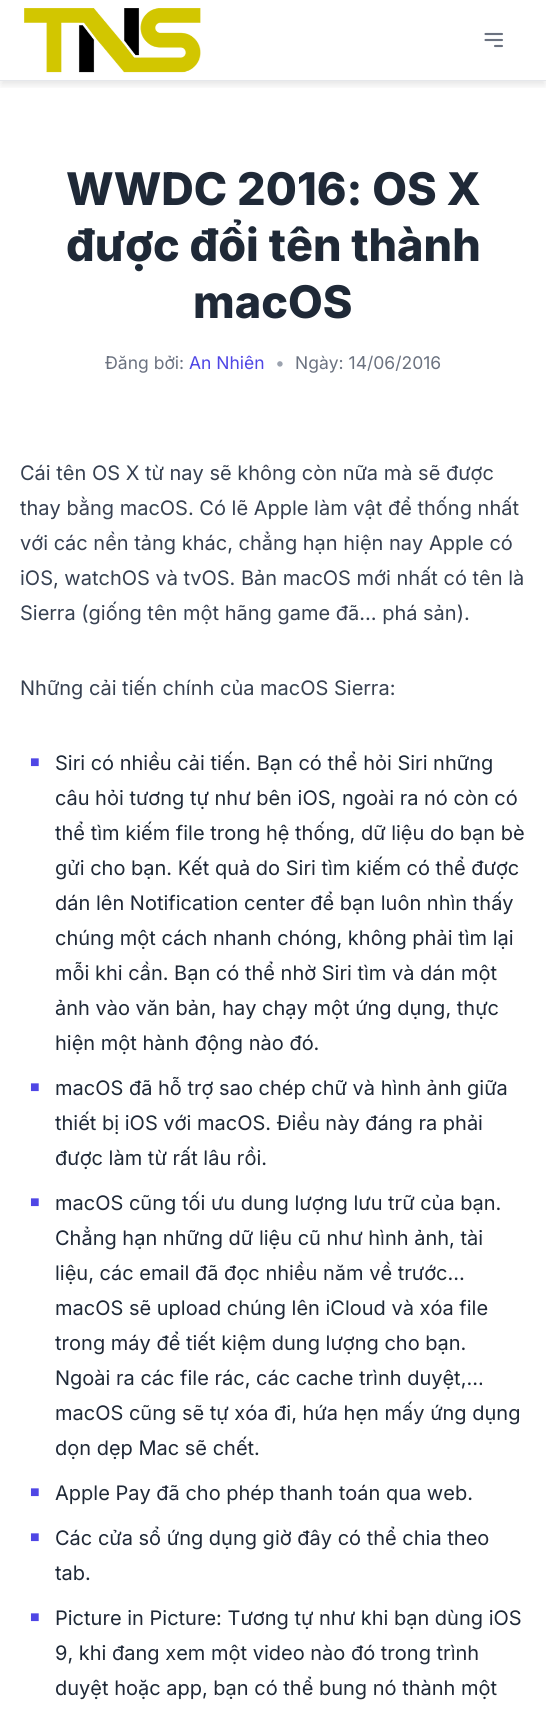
import math
import cairo


def use_color(cr, r, g, b):
  cr.set_source_rgb(r / 255, g / 255, b / 255)

def text(cr, x, y, s, family, size, color, bold=False, italic=False):
  cr.select_font_face(family, cairo.FONT_SLANT_ITALIC if italic else cairo.FONT_SLANT_NORMAL, cairo.FONT_WEIGHT_BOLD if bold else cairo.FONT_WEIGHT_NORMAL)
  cr.set_font_size(size)
  use_color(cr, *color)
  cr.move_to(x, y)
  cr.show_text(s)

def box(cr, x, y, w, h, *color):
  use_color(cr, *color)
  cr.rectangle(x, y, w, h)
  cr.fill()

def round_rect(cr, x, y, w, h, r):
  cr.new_sub_path()
  for i, (u, v) in enumerate([(x + w - r, y + h - r), (x + r, y + h - r), (x + r, y + r), (x + w - r, y + r)]):
    cr.arc(u, v, r, i * math.pi / 2, (i + 1) * math.pi / 2)
  cr.close_path()

def shadow(cr, x, y, w, h, r, blur, alpha):
  cr.push_group_with_content(cairo.CONTENT_ALPHA)
  cr.set_operator(cairo.OPERATOR_SOURCE)
  for i in range(15, -16, -2):
    e = blur * i / 6
    if min(w, h) + 2 * e > 0:
      cr.set_source_rgba(0, 0, 0, alpha * math.erfc((i - 1) / 8.5) / 2)
      round_rect(cr, x - e, y - e, w + 2 * e, h + 2 * e, max(0, min(r + e + blur * .6, min(w, h) / 2 + e)))
      cr.fill()
  cr.mask(cr.pop_group())

def picture(cr, path, x, y, w, h):
  cr.save()
  cr.set_source_surface(cairo.ImageSurface.create_from_png(path), x, y)
  cr.rectangle(x, y, w, h)
  cr.fill()
  cr.restore()

def draw(cr):
  use_color(cr, 255, 255, 255)
  cr.paint()
  cr.save()
  cr.rectangle(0, 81, 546, 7)
  cr.clip()
  use_color(cr, 0, 0, 0)
  shadow(cr, 1, 6, 544, 79, 0, 4, 0.1)
  cr.restore()
  box(cr, 0, 80, 546, 1, 229, 231, 235)
  picture(cr, "img_01.png", 24, 8, 177, 65)
  cr.new_path()
  cr.move_to(485.5, 34)
  cr.line_to(502, 34)
  cr.move_to(485.5, 40)
  cr.line_to(502, 40)
  cr.move_to(495, 46)
  cr.line_to(502, 46)
  use_color(cr, 107, 114, 128)
  cr.set_line_width(2.1)
  cr.set_line_cap(cairo.LINE_CAP_ROUND)
  cr.set_line_join(cairo.LINE_JOIN_ROUND)
  cr.stroke()
  text(cr, 66, 205, "WWDC 2016: OS X", "Inter ExtraBold", 45, (31, 41, 55))
  text(cr, 66, 261, "được đổi tên thành", "Inter ExtraBold", 45, (31, 41, 55))
  text(cr, 193, 318, "macOS", "Inter ExtraBold", 45, (31, 41, 55))
  text(cr, 105, 369, "Đăng bởi:", "Inter", 17.5, (107, 114, 128))
  text(cr, 189, 369, "An Nhiên", "Inter", 17.5, (79, 70, 229))
  text(cr, 275, 369, "•", "Inter", 17.5, (156, 163, 175))
  text(cr, 295, 369, "Ngày: 14/06/2016", "Inter", 17.5, (107, 114, 128))
  text(cr, 20, 480, "Cái tên OS X từ nay sẽ không còn nữa mà sẽ được", "Inter", 20, (55, 65, 81))
  text(cr, 20, 515, "thay bằng macOS. Có lẽ Apple làm vật để thống nhất", "Inter", 20, (55, 65, 81))
  text(cr, 20, 550, "với các nền tảng khác, chẳng hạn hiện nay Apple có", "Inter", 20, (55, 65, 81))
  text(cr, 20, 585, "iOS, watchOS và tvOS. Bản macOS mới nhất có tên là", "Inter", 20, (55, 65, 81))
  text(cr, 20, 620, "Sierra (giống tên một hãng game đã… phá sản).", "Inter", 20, (55, 65, 81))
  text(cr, 20, 695, "Những cải tiến chính của macOS Sierra:", "Inter", 20, (55, 65, 81))
  text(cr, 30, 767, "■", "Liberation Sans", 16, (79, 70, 229))
  text(cr, 55, 770, "Siri có nhiều cải tiến. Bạn có thể hỏi Siri những", "Inter", 20, (31, 41, 55))
  text(cr, 55, 805, "câu hỏi tương tự như bên iOS, ngoài ra nó còn có", "Inter", 20, (31, 41, 55))
  text(cr, 55, 840, "thể tìm kiếm file trong hệ thống, dữ liệu do bạn bè", "Inter", 20, (31, 41, 55))
  text(cr, 55, 875, "gửi cho bạn. Kết quả do Siri tìm kiếm có thể được", "Inter", 20, (31, 41, 55))
  text(cr, 55, 910, "dán lên Notification center để bạn luôn nhìn thấy", "Inter", 20, (31, 41, 55))
  text(cr, 55, 945, "chúng một cách nhanh chóng, không phải tìm lại", "Inter", 20, (31, 41, 55))
  text(cr, 55, 980, "mỗi khi cần. Bạn có thể nhờ Siri tìm và dán một", "Inter", 20, (31, 41, 55))
  text(cr, 55, 1015, "ảnh vào văn bản, hay chạy một ứng dụng, thực", "Inter", 20, (31, 41, 55))
  text(cr, 55, 1050, "hiện một hành động nào đó.", "Inter", 20, (31, 41, 55))
  text(cr, 30, 1092, "■", "Liberation Sans", 16, (79, 70, 229))
  text(cr, 55, 1095, "macOS đã hỗ trợ sao chép chữ và hình ảnh giữa", "Inter", 20, (31, 41, 55))
  text(cr, 55, 1130, "thiết bị iOS với macOS. Điều này đáng ra phải", "Inter", 20, (31, 41, 55))
  text(cr, 55, 1165, "được làm từ rất lâu rồi.", "Inter", 20, (31, 41, 55))
  text(cr, 30, 1207, "■", "Liberation Sans", 16, (79, 70, 229))
  text(cr, 55, 1210, "macOS cũng tối ưu dung lượng lưu trữ của bạn.", "Inter", 20, (31, 41, 55))
  text(cr, 55, 1245, "Chẳng hạn những dữ liệu cũ như hình ảnh, tài", "Inter", 20, (31, 41, 55))
  text(cr, 55, 1280, "liệu, các email đã đọc nhiều năm về trước…", "Inter", 20, (31, 41, 55))
  text(cr, 55, 1315, "macOS sẽ upload chúng lên iCloud và xóa file", "Inter", 20, (31, 41, 55))
  text(cr, 55, 1350, "trong máy để tiết kiệm dung lượng cho bạn.", "Inter", 20, (31, 41, 55))
  text(cr, 55, 1385, "Ngoài ra các file rác, các cache trình duyệt,…", "Inter", 20, (31, 41, 55))
  text(cr, 55, 1420, "macOS cũng sẽ tự xóa đi, hứa hẹn mấy ứng dụng", "Inter", 20, (31, 41, 55))
  text(cr, 55, 1455, "dọn dẹp Mac sẽ chết.", "Inter", 20, (31, 41, 55))
  text(cr, 30, 1497, "■", "Liberation Sans", 16, (79, 70, 229))
  text(cr, 55, 1500, "Apple Pay đã cho phép thanh toán qua web.", "Inter", 20, (31, 41, 55))
  text(cr, 30, 1542, "■", "Liberation Sans", 16, (79, 70, 229))
  text(cr, 55, 1545, "Các cửa sổ ứng dụng giờ đây có thể chia theo", "Inter", 20, (31, 41, 55))
  text(cr, 55, 1580, "tab.", "Inter", 20, (31, 41, 55))
  text(cr, 30, 1622, "■", "Liberation Sans", 16, (79, 70, 229))
  text(cr, 55, 1625, "Picture in Picture: Tương tự như khi bạn dùng iOS", "Inter", 20, (31, 41, 55))
  text(cr, 55, 1660, "9, khi đang xem một video nào đó trong trình", "Inter", 20, (31, 41, 55))
  text(cr, 55, 1695, "duyệt hoặc app, bạn có thể bung nó thành một", "Inter", 20, (31, 41, 55))


surface = cairo.ImageSurface(cairo.FORMAT_RGB24, 546, 1724)
cr = cairo.Context(surface)
options = cairo.FontOptions()
options.set_hint_metrics(cairo.HINT_METRICS_OFF)
options.set_hint_style(cairo.HINT_STYLE_NONE)
cr.set_font_options(options)
cr.set_miter_limit(4)
draw(cr)
surface.write_to_png("out.png")
